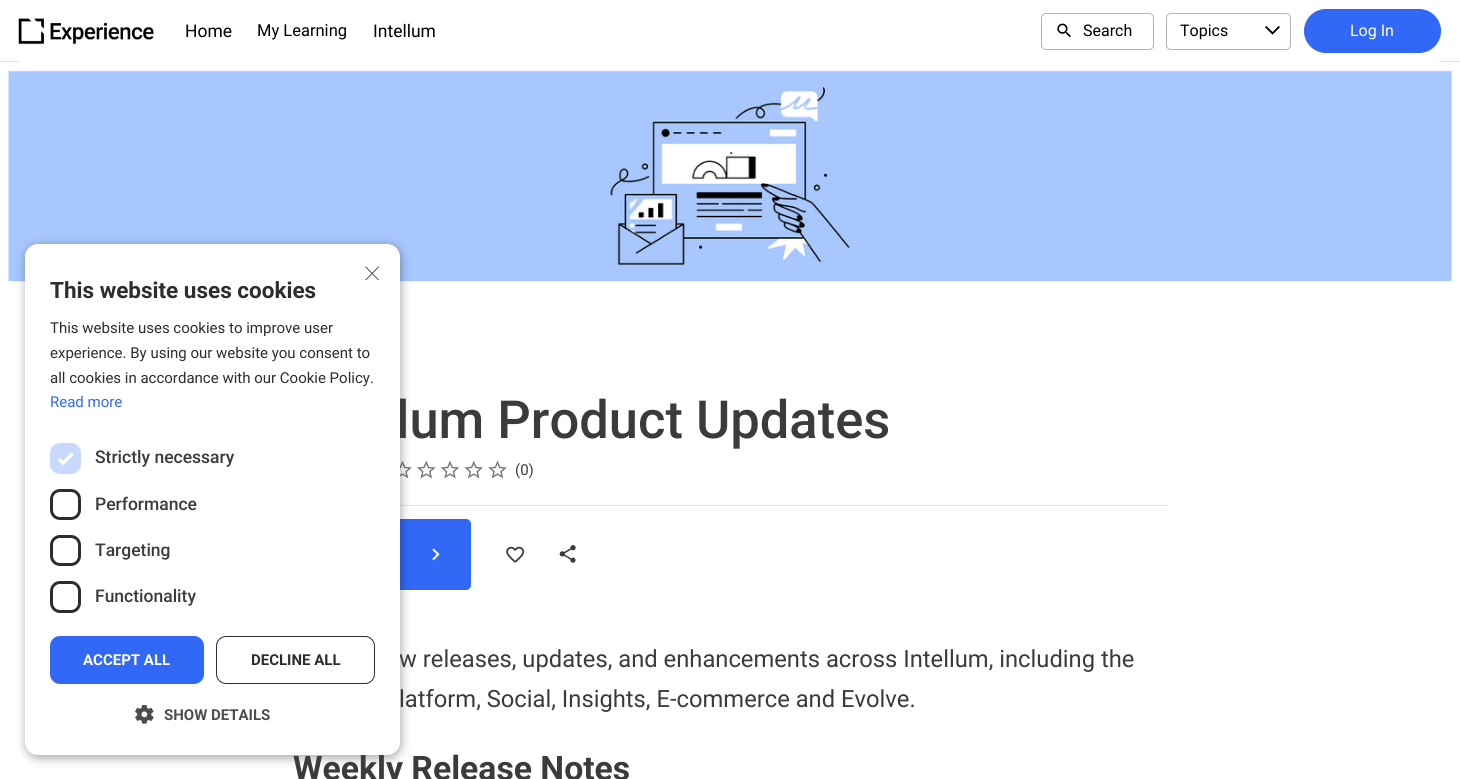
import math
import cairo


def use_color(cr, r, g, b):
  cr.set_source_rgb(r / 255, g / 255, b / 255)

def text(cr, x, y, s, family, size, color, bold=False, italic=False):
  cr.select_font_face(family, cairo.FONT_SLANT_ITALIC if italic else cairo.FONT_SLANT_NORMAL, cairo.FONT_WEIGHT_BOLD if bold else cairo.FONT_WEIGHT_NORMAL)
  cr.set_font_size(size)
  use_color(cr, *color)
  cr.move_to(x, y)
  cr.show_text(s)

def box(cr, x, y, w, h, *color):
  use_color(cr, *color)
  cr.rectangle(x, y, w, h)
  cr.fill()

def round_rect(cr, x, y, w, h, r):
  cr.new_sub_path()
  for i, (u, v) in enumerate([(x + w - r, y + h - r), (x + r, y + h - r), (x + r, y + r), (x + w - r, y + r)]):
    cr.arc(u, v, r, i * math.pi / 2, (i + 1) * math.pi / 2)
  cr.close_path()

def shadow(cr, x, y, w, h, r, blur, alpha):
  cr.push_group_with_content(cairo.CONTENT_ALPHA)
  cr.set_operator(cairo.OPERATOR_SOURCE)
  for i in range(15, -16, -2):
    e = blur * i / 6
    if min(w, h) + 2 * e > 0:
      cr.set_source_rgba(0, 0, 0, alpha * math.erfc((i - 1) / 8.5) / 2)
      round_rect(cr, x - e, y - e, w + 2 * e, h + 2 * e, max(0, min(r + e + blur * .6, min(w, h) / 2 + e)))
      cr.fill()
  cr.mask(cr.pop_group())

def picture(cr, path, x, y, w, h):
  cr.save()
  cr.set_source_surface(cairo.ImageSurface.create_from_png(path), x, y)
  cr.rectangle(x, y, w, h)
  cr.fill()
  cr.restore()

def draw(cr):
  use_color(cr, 255, 255, 255)
  cr.paint()
  box(cr, 0, 61, 1460, 1, 223, 223, 223)
  box(cr, 19, 61, 1422, 1, 255, 255, 255)
  picture(cr, "img_01.png", 18, 18, 136, 27)
  round_rect(cr, 1041.5, 13.5, 112, 36, 4.5)
  use_color(cr, 179, 179, 179)
  cr.set_line_width(1)
  cr.stroke()
  picture(cr, "img_02.png", 1057, 23, 14, 15)
  round_rect(cr, 1166.5, 13.5, 124, 36, 4.5)
  cr.stroke()
  picture(cr, "img_03.png", 1265, 26, 15, 9)
  use_color(cr, 49, 104, 246)
  round_rect(cr, 1304.5, 9.5, 136, 43, 21.5)
  cr.fill_preserve()
  cr.stroke()
  picture(cr, "img_05.png", 8, 70, 1444, 212)
  picture(cr, "img_06.png", 400, 460, 12, 19)
  box(cr, 400, 505, 768, 1, 228, 228, 228)
  use_color(cr, 49, 104, 246)
  round_rect(cr, 293.5, 519.5, 177, 70, 4.5)
  cr.fill_preserve()
  cr.stroke()
  use_color(cr, 0, 0, 0)
  shadow(cr, 26, 246, 375, 512, 13, 5, 0.35)
  picture(cr, "img_07.png", 417, 460, 19, 19)
  picture(cr, "img_08.png", 440, 460, 20, 19)
  picture(cr, "img_09.png", 464, 460, 19, 19)
  picture(cr, "img_10.png", 488, 460, 19, 19)
  picture(cr, "img_11.png", 432, 548, 8, 13)
  picture(cr, "img_12.png", 506, 546, 19, 17)
  picture(cr, "img_13.png", 559, 545, 17, 18)
  text(cr, 185, 37, "Home", "Roboto", 17.5, (0, 0, 0))
  text(cr, 257, 36, "My Learning", "Roboto", 16.5, (0, 0, 0))
  text(cr, 373, 37, "Intellum", "Roboto", 17.5, (0, 0, 0))
  text(cr, 1083, 36, "Search", "Roboto", 16, (0, 0, 0))
  text(cr, 1180, 36, "Topics", "Roboto", 16, (0, 0, 0))
  text(cr, 1350, 36, "Log In", "Roboto", 16, (255, 255, 255))
  text(cr, 396, 438, "lum Product Updates", "Roboto Medium", 52.5, (57, 59, 61))
  text(cr, 515, 475, "(0)", "Roboto", 15, (57, 59, 61))
  text(cr, 399, 667, "w releases, updates, and enhancements across Intellum, including the", "Roboto", 23.75, (57, 59, 61))
  text(cr, 399, 707, "latform, Social, Insights, E-commerce and Evolve.", "Roboto", 23.75, (57, 59, 61))
  text(cr, 293, 780, "Weekly Release Notes", "Roboto", 33.75, (57, 59, 61), bold=True)
  use_color(cr, 255, 255, 255)
  round_rect(cr, 25, 244, 375, 511, 13)
  cr.fill()
  cr.save()
  cr.rectangle(363, 261, 18, 19)
  cr.clip()
  text(cr, 363, 281, "×", "Roboto Thin", 36, (77, 77, 77))
  cr.restore()
  picture(cr, "img_04.png", 135, 705, 19, 19)
  text(cr, 164, 720, "SHOW DETAILS", "Roboto", 15, (77, 77, 77), bold=True)
  round_rect(cr, 51.5, 582.5, 28, 29, 8.5)
  use_color(cr, 45, 45, 45)
  cr.set_line_width(3)
  cr.stroke()
  round_rect(cr, 51.5, 536.5, 28, 28, 8.5)
  cr.stroke()
  round_rect(cr, 51.5, 490.5, 28, 28, 8.5)
  cr.stroke()
  use_color(cr, 201, 216, 253)
  round_rect(cr, 50, 443, 31, 31, 10)
  cr.fill()
  cr.new_path()
  cr.move_to(58.5, 459)
  cr.line_to(63, 463)
  cr.line_to(72.5, 453.5)
  use_color(cr, 255, 255, 255)
  cr.set_line_width(3.3)
  cr.stroke()
  round_rect(cr, 216.5, 636.5, 158, 47, 9.5)
  use_color(cr, 45, 45, 45)
  cr.set_line_width(1)
  cr.stroke()
  text(cr, 251, 665, "DECLINE ALL", "Roboto", 15, (45, 45, 45), bold=True)
  use_color(cr, 49, 104, 246)
  round_rect(cr, 50, 636, 154, 48, 10)
  cr.fill()
  text(cr, 83, 665, "ACCEPT ALL", "Roboto", 15, (255, 255, 255), bold=True)
  text(cr, 95, 602, "Functionality", "Roboto Medium", 17.5, (57, 59, 61))
  text(cr, 95, 556, "Targeting", "Roboto Medium", 17.5, (57, 59, 61))
  text(cr, 95, 510, "Performance", "Roboto Medium", 17.5, (57, 59, 61))
  text(cr, 95, 463, "Strictly necessary", "Roboto Medium", 17.5, (57, 59, 61))
  text(cr, 50, 407, "Read more", "Roboto", 15, (49, 104, 246))
  text(cr, 50, 383, "all cookies in accordance with our Cookie Policy.", "Roboto", 15, (45, 45, 45))
  text(cr, 50, 358, "experience. By using our website you consent to", "Roboto", 15, (45, 45, 45))
  text(cr, 50, 333, "This website uses cookies to improve user", "Roboto", 15, (45, 45, 45))
  text(cr, 50, 298, "This website uses cookies", "Roboto", 22.5, (45, 45, 45), bold=True)


surface = cairo.ImageSurface(cairo.FORMAT_RGB24, 1460, 779)
cr = cairo.Context(surface)
options = cairo.FontOptions()
options.set_hint_metrics(cairo.HINT_METRICS_OFF)
options.set_hint_style(cairo.HINT_STYLE_NONE)
cr.set_font_options(options)
cr.set_miter_limit(4)
draw(cr)
surface.write_to_png("out.png")
